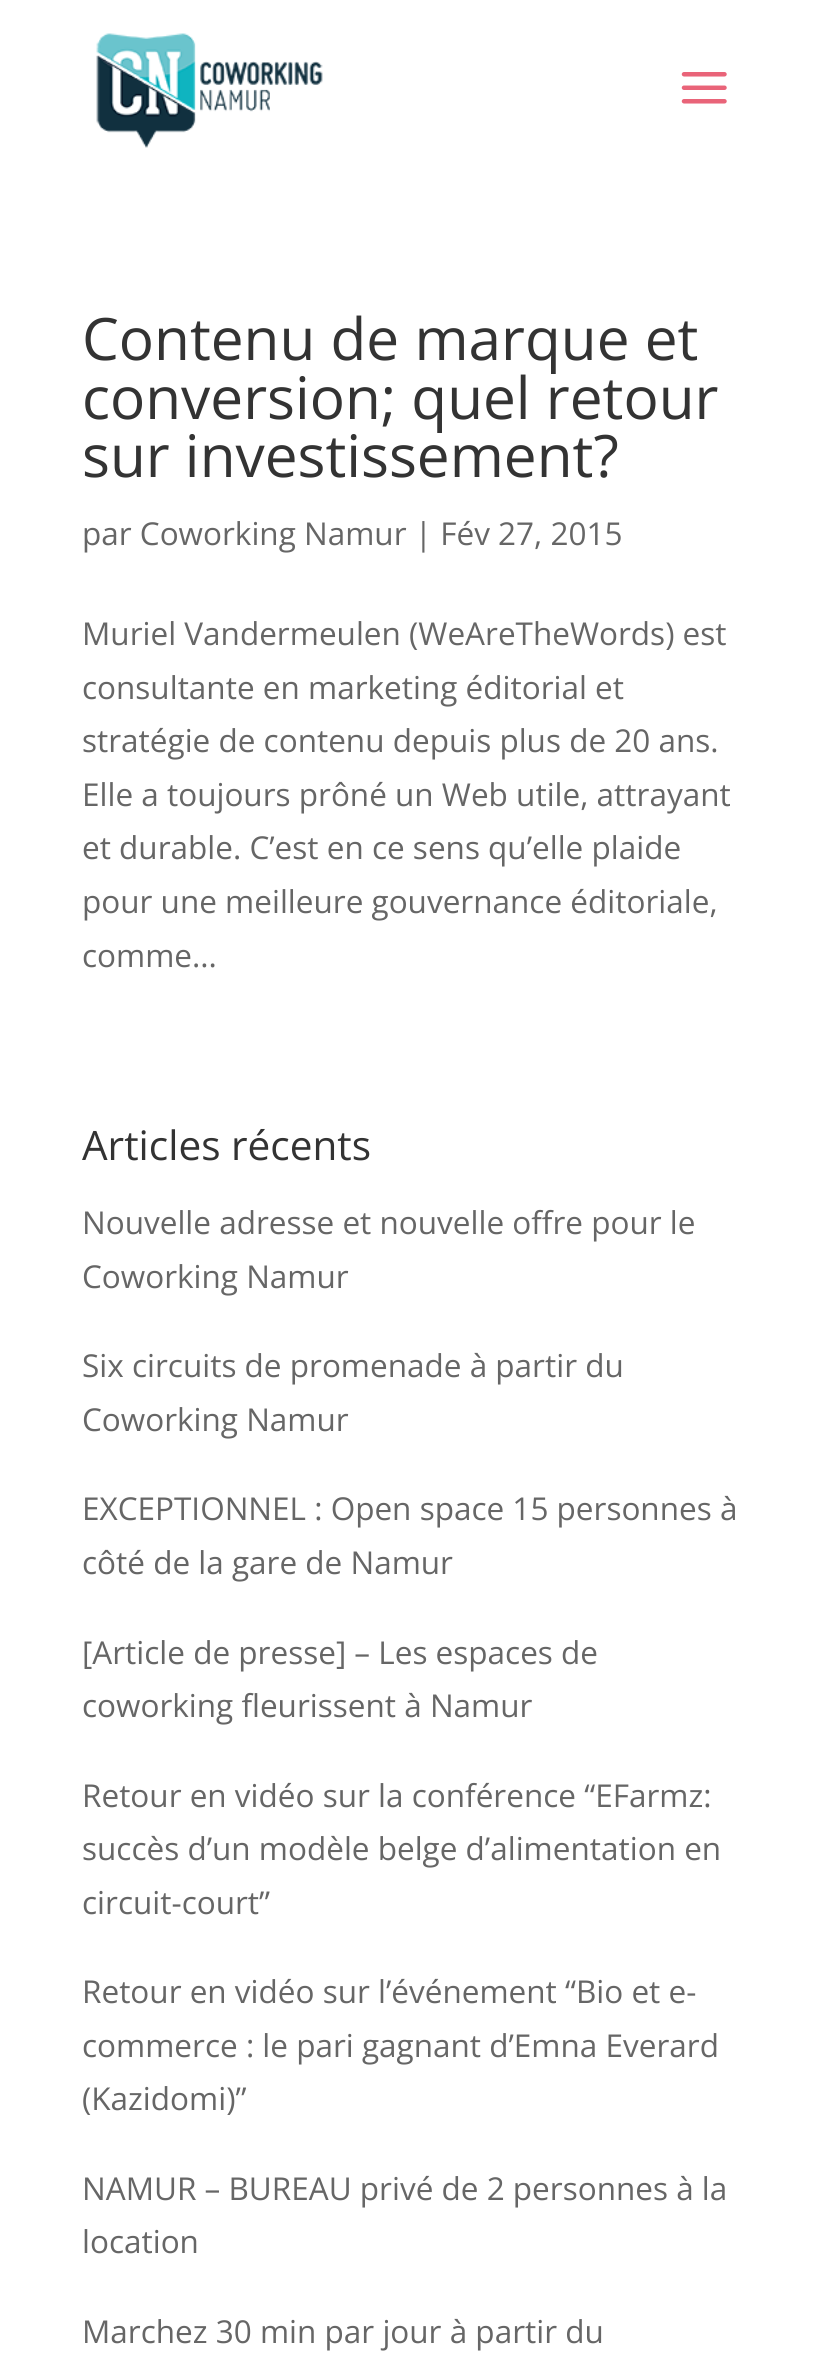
#include <cairo.h>
#include <math.h>
#include <stddef.h>


static void rgb(cairo_t *cr, int r, int g, int b)
{
	cairo_set_source_rgb(cr, r / 255.0, g / 255.0, b / 255.0);
}

static void face(cairo_t *cr, const char *family, double size, int italic, int bold)
{
	cairo_select_font_face(cr, family, italic ? CAIRO_FONT_SLANT_ITALIC : CAIRO_FONT_SLANT_NORMAL,
		bold ? CAIRO_FONT_WEIGHT_BOLD : CAIRO_FONT_WEIGHT_NORMAL);
	cairo_set_font_size(cr, size);
}

static void label(cairo_t *cr, double x, double y, const char *s)
{
	cairo_move_to(cr, x, y);
	cairo_show_text(cr, s);
}

static void image(cairo_t *cr, const char *path, double x, double y, double w, double h)
{
	cairo_surface_t *image = cairo_image_surface_create_from_png(path);
	cairo_save(cr);
	cairo_set_source_surface(cr, image, x, y);
	cairo_rectangle(cr, x, y, w, h);
	cairo_fill(cr);
	cairo_restore(cr);
	cairo_surface_destroy(image);
}

static void draw(cairo_t *cr) {
	rgb(cr, 255, 255, 255);
	cairo_paint(cr);
	image(cr, "image0.png", 96, 33, 227, 115);
	image(cr, "image1.png", 681, 72, 46, 32);
	face(cr, "Open Sans", 58.5, 0, 0);
	rgb(cr, 51, 51, 51);
	label(cr, 82, 360, "Contenu de marque et");
	label(cr, 82, 419, "conversion; quel retour");
	label(cr, 82, 477, "sur investissement?");
	face(cr, "Open Sans", 31.5, 0, 0);
	rgb(cr, 102, 102, 102);
	label(cr, 82, 545, "par Coworking Namur | Fév 27, 2015");
	label(cr, 82, 645, "Muriel Vandermeulen (WeAreTheWords) est");
	label(cr, 82, 699, "consultante en marketing éditorial et");
	label(cr, 82, 752, "stratégie de contenu depuis plus de 20 ans.");
	label(cr, 82, 806, "Elle a toujours prôné un Web utile, attrayant");
	label(cr, 82, 859, "et durable. C’est en ce sens qu’elle plaide");
	label(cr, 82, 913, "pour une meilleure gouvernance éditoriale,");
	label(cr, 82, 967, "comme...");
	face(cr, "Open Sans", 40.5, 0, 0);
	rgb(cr, 51, 51, 51);
	label(cr, 82, 1160, "Articles récents");
	face(cr, "Open Sans", 31.5, 0, 0);
	rgb(cr, 102, 102, 102);
	label(cr, 82, 1234, "Nouvelle adresse et nouvelle offre pour le");
	label(cr, 82, 1288, "Coworking Namur");
	label(cr, 82, 1377, "Six circuits de promenade à partir du");
	label(cr, 82, 1431, "Coworking Namur");
	label(cr, 82, 1520, "EXCEPTIONNEL : Open space 15 personnes à");
	label(cr, 82, 1574, "côté de la gare de Namur");
	label(cr, 82, 1664, "[Article de presse] – Les espaces de");
	label(cr, 82, 1717, "coworking fleurissent à Namur");
	label(cr, 82, 1807, "Retour en vidéo sur la conférence “EFarmz:");
	label(cr, 82, 1860, "succès d’un modèle belge d’alimentation en");
	label(cr, 82, 1914, "circuit-court”");
	label(cr, 82, 2003, "Retour en vidéo sur l’événement “Bio et e-");
	label(cr, 82, 2057, "commerce : le pari gagnant d’Emna Everard");
	label(cr, 82, 2110, "(Kazidomi)”");
	label(cr, 82, 2200, "NAMUR – BUREAU privé de 2 personnes à la");
	label(cr, 82, 2253, "location");
	label(cr, 82, 2343, "Marchez 30 min par jour à partir du");
}

int main(void) {
	cairo_surface_t *surface = cairo_image_surface_create(CAIRO_FORMAT_RGB24, 823, 2373);
	cairo_t *cr = cairo_create(surface);
	cairo_font_options_t *options = cairo_font_options_create();
	cairo_font_options_set_hint_metrics(options, CAIRO_HINT_METRICS_OFF);
	cairo_font_options_set_hint_style(options, CAIRO_HINT_STYLE_NONE);
	cairo_set_font_options(cr, options);
	cairo_set_miter_limit(cr, 4);
	draw(cr);
	cairo_surface_write_to_png(surface, "render.png");
	cairo_font_options_destroy(options);
	cairo_destroy(cr);
	cairo_surface_destroy(surface);
	return 0;
}
